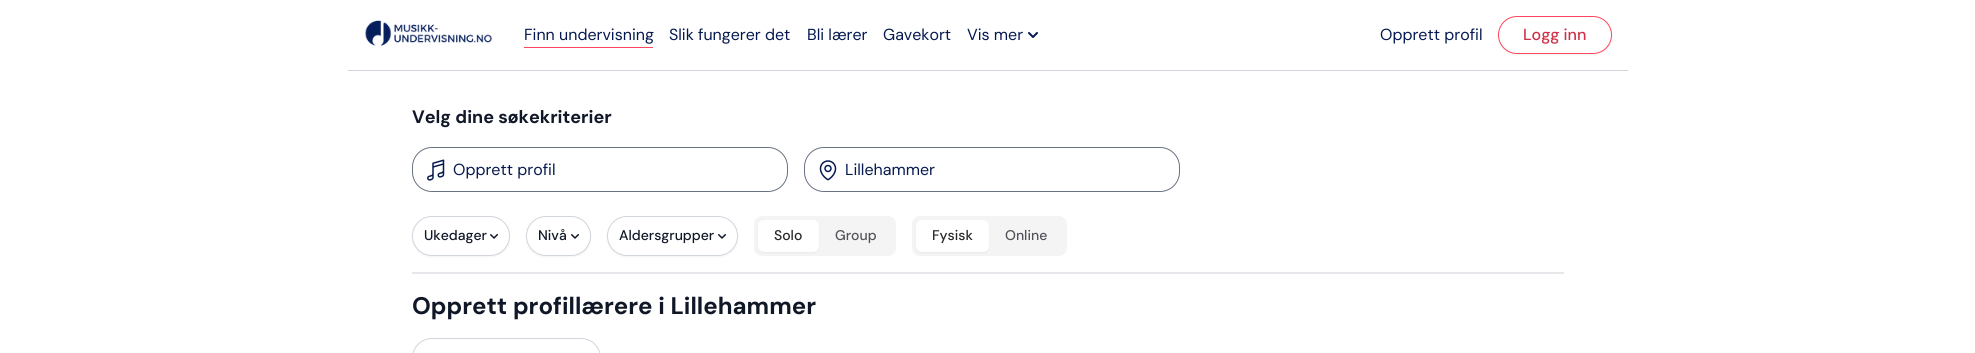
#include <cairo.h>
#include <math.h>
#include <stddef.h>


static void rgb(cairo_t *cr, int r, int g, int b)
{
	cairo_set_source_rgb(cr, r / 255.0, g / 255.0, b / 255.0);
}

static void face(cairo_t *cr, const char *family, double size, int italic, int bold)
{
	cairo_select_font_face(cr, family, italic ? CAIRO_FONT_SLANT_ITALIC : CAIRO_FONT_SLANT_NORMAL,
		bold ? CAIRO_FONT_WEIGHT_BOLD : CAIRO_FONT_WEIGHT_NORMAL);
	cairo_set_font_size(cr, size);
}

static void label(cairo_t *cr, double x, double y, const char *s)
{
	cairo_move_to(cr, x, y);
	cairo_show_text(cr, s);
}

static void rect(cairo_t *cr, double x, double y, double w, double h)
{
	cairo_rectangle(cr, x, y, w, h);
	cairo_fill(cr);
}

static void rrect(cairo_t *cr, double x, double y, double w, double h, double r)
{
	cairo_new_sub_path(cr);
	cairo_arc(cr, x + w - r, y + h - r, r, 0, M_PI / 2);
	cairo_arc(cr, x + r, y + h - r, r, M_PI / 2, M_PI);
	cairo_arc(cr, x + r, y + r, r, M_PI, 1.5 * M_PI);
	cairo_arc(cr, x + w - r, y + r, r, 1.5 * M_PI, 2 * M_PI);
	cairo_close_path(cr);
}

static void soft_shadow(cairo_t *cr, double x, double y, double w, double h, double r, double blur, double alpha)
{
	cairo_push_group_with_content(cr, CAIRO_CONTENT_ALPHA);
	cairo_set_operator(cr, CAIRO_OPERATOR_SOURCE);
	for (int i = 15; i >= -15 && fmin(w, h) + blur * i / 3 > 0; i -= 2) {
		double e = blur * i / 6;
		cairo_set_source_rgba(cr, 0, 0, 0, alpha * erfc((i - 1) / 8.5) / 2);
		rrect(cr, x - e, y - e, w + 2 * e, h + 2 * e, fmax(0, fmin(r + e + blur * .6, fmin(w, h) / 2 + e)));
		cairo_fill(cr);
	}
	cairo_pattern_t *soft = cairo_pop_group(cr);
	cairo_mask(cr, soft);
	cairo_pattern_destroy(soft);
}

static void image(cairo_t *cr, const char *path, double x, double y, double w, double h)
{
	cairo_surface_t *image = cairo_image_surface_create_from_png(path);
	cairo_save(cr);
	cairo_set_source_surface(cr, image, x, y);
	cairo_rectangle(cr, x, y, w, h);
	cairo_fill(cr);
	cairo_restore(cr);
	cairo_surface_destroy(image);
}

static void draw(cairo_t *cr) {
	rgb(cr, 255, 255, 255);
	cairo_paint(cr);
	rgb(cr, 209, 213, 220);
	rect(cr, 348, 70, 1280, 1);
	image(cr, "image0.png", 365, 20, 127, 26);
	rgb(cr, 255, 70, 92);
	rect(cr, 524, 47, 129, 1);
	face(cr, "DM Sans", 16, 0, 0);
	rgb(cr, 5, 25, 80);
	label(cr, 524, 40, "Finn undervisning");
	label(cr, 669, 40, "Slik fungerer det");
	label(cr, 807, 40, "Bli lærer");
	label(cr, 883, 40, "Gavekort");
	label(cr, 967, 40, "Vis mer");
	image(cr, "image1.png", 1028, 32, 10, 6);
	label(cr, 1380, 40, "Opprett profil");
	rgb(cr, 0, 0, 0);
	soft_shadow(cr, 1498, 17, 114, 38, 19, 1, 0.05);
	rgb(cr, 255, 255, 255);
	rrect(cr, 1498.5, 16.5, 113, 37, 18.5);
	cairo_fill_preserve(cr);
	rgb(cr, 255, 70, 92);
	cairo_set_line_width(cr, 1);
	cairo_stroke(cr);
	face(cr, "DM Sans Medium", 16, 0, 0);
	rgb(cr, 207, 48, 71);
	label(cr, 1523, 40, "Logg inn");
	face(cr, "DM Sans", 18, 0, 1);
	rgb(cr, 16, 24, 40);
	label(cr, 412, 123, "Velg dine søkekriterier");
	rrect(cr, 412.5, 147.5, 375, 44, 19.5);
	rgb(cr, 106, 114, 130);
	cairo_stroke(cr);
	image(cr, "image2.png", 427, 159, 18, 22);
	face(cr, "DM Sans", 16, 0, 0);
	rgb(cr, 5, 25, 80);
	label(cr, 453, 175, "Opprett profil");
	rrect(cr, 804.5, 147.5, 375, 44, 19.5);
	rgb(cr, 106, 114, 130);
	cairo_stroke(cr);
	image(cr, "image3.png", 819, 160, 18, 21);
	rgb(cr, 5, 25, 80);
	label(cr, 845, 175, "Lillehammer");
	rgb(cr, 229, 231, 235);
	rect(cr, 412, 272, 1152, 2);
	rgb(cr, 0, 0, 0);
	soft_shadow(cr, 412, 217, 98, 40, 20, 1, 0.05);
	rgb(cr, 255, 255, 255);
	rrect(cr, 412.5, 216.5, 97, 39, 19.5);
	cairo_fill_preserve(cr);
	rgb(cr, 209, 213, 220);
	cairo_stroke(cr);
	face(cr, "DM Sans Medium", 14, 0, 0);
	rgb(cr, 16, 24, 40);
	label(cr, 424, 240, "Ukedager");
	image(cr, "image4.png", 490, 234, 8, 5);
	rgb(cr, 0, 0, 0);
	soft_shadow(cr, 526, 217, 65, 40, 20, 1, 0.05);
	rgb(cr, 255, 255, 255);
	rrect(cr, 526.5, 216.5, 64, 39, 19.5);
	cairo_fill_preserve(cr);
	rgb(cr, 209, 213, 220);
	cairo_stroke(cr);
	rgb(cr, 16, 24, 40);
	label(cr, 538, 240, "Nivå");
	image(cr, "image4.png", 571, 234, 8, 5);
	rgb(cr, 0, 0, 0);
	soft_shadow(cr, 607, 217, 131, 40, 20, 1, 0.05);
	rgb(cr, 255, 255, 255);
	rrect(cr, 607.5, 216.5, 130, 39, 19.5);
	cairo_fill_preserve(cr);
	rgb(cr, 209, 213, 220);
	cairo_stroke(cr);
	rgb(cr, 16, 24, 40);
	label(cr, 619, 240, "Aldersgrupper");
	image(cr, "image4.png", 718, 234, 8, 5);
	rgb(cr, 244, 244, 244);
	rrect(cr, 754, 216, 142, 40, 8);
	cairo_fill(cr);
	rgb(cr, 0, 0, 0);
	soft_shadow(cr, 758, 221, 61, 32, 6, 1, 0.05);
	rgb(cr, 255, 255, 255);
	rrect(cr, 758, 220, 61, 32, 6);
	cairo_fill(cr);
	rgb(cr, 39, 39, 42);
	label(cr, 774, 240, "Solo");
	rgb(cr, 82, 82, 92);
	label(cr, 835, 240, "Group");
	rgb(cr, 244, 244, 244);
	rrect(cr, 912, 216, 155, 40, 8);
	cairo_fill(cr);
	rgb(cr, 0, 0, 0);
	soft_shadow(cr, 916, 221, 73, 32, 6, 1, 0.05);
	rgb(cr, 255, 255, 255);
	rrect(cr, 916, 220, 73, 32, 6);
	cairo_fill(cr);
	rgb(cr, 39, 39, 42);
	label(cr, 932, 240, "Fysisk");
	rgb(cr, 82, 82, 92);
	label(cr, 1005, 240, "Online");
	face(cr, "DM Sans", 24, 0, 1);
	rgb(cr, 16, 24, 40);
	label(cr, 412, 314, "Opprett profillærere i Lillehammer");
	rrect(cr, 412.5, 338.5, 188, 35, 19.5);
	rgb(cr, 209, 213, 220);
	cairo_stroke(cr);
}

int main(void) {
	cairo_surface_t *surface = cairo_image_surface_create(CAIRO_FORMAT_RGB24, 1975, 353);
	cairo_t *cr = cairo_create(surface);
	cairo_font_options_t *options = cairo_font_options_create();
	cairo_font_options_set_hint_metrics(options, CAIRO_HINT_METRICS_OFF);
	cairo_font_options_set_hint_style(options, CAIRO_HINT_STYLE_NONE);
	cairo_set_font_options(cr, options);
	cairo_set_miter_limit(cr, 4);
	draw(cr);
	cairo_surface_write_to_png(surface, "render.png");
	cairo_font_options_destroy(options);
	cairo_destroy(cr);
	cairo_surface_destroy(surface);
	return 0;
}
